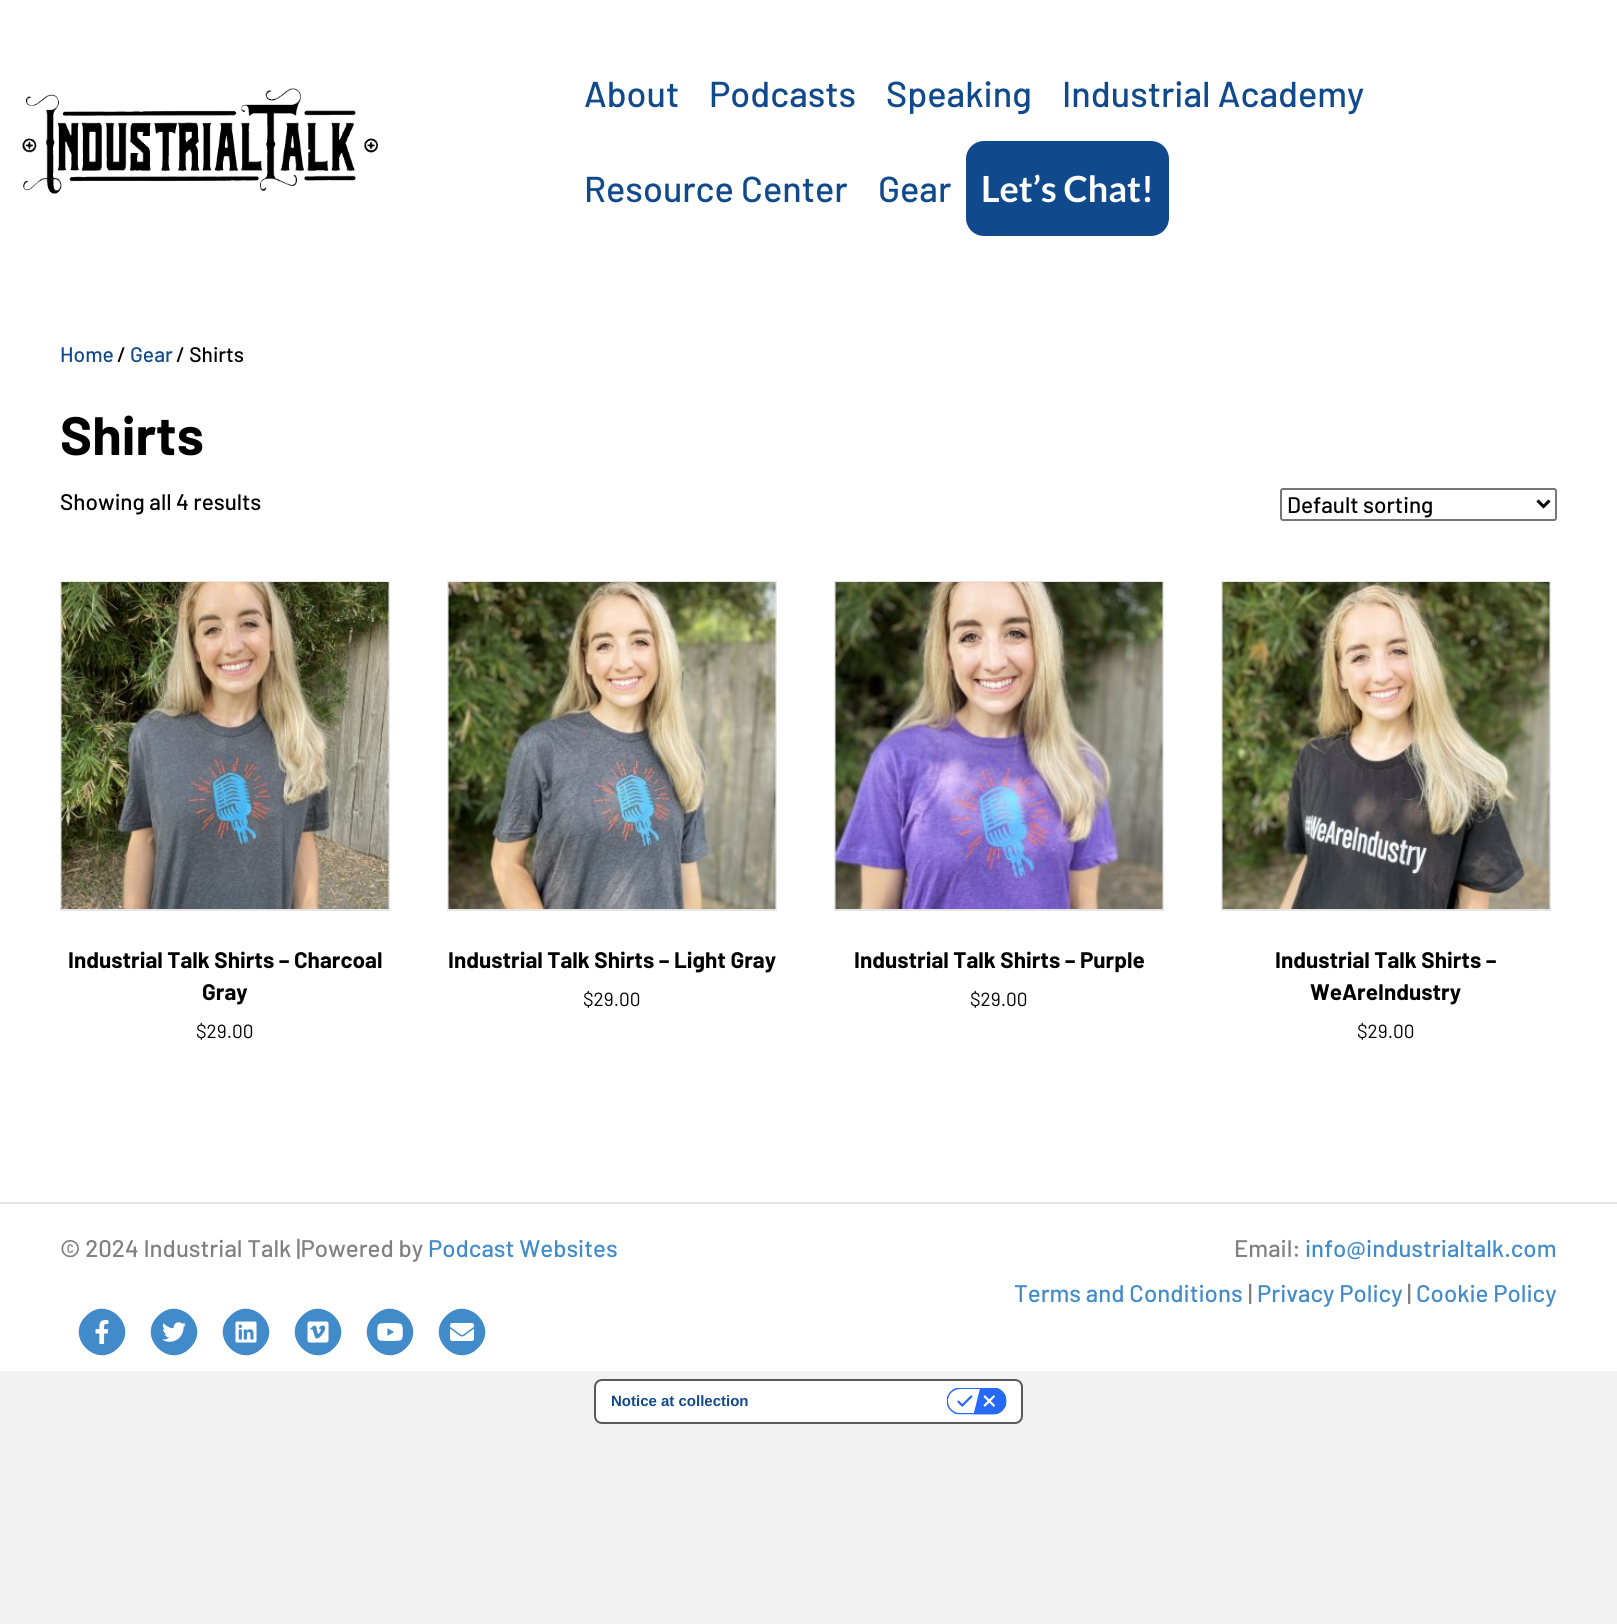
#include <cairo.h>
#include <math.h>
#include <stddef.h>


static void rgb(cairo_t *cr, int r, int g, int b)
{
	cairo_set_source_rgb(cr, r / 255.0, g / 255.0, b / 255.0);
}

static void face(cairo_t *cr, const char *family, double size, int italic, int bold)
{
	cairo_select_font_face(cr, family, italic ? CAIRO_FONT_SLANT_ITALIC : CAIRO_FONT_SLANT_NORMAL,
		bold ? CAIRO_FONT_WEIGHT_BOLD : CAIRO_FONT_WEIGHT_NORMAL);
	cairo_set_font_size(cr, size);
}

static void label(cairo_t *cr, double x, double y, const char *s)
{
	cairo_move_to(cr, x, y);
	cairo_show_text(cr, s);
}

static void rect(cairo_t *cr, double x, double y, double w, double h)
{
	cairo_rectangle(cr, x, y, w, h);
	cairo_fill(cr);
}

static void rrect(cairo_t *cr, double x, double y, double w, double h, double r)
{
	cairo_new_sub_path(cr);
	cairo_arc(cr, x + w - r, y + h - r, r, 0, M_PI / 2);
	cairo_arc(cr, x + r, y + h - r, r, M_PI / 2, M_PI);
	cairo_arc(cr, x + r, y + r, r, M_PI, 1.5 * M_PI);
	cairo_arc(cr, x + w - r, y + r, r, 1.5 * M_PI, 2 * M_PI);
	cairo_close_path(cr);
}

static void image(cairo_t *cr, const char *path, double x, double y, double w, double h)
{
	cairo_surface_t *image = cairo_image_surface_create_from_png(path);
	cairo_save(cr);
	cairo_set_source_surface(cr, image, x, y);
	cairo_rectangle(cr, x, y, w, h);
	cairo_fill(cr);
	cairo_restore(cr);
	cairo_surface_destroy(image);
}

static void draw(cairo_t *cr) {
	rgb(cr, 242, 242, 242);
	cairo_paint(cr);
	rgb(cr, 255, 255, 255);
	rect(cr, 0, 0, 1617, 1202);
	image(cr, "image0.png", 22, 88, 356, 106);
	face(cr, "Barlow Medium", 36, 0, 0);
	rgb(cr, 17, 74, 140);
	label(cr, 584, 107, "About");
	label(cr, 709, 107, "Podcasts");
	label(cr, 886, 107, "Speaking");
	label(cr, 1062, 107, "Industrial Academy");
	label(cr, 584, 202, "Resource Center");
	label(cr, 878, 202, "Gear");
	rrect(cr, 966, 141, 203, 95, 18);
	cairo_fill(cr);
	face(cr, "Lato", 36, 0, 1);
	rgb(cr, 255, 255, 255);
	label(cr, 981, 202, "Let’s Chat!");
	face(cr, "Barlow Medium", 21, 0, 0);
	rgb(cr, 17, 74, 140);
	label(cr, 60, 362, "Home");
	rgb(cr, 0, 0, 0);
	label(cr, 117, 362, "/");
	rgb(cr, 17, 74, 140);
	label(cr, 130, 362, "Gear");
	rgb(cr, 0, 0, 0);
	label(cr, 176, 362, "/ Shirts");
	face(cr, "Barlow", 54, 0, 1);
	label(cr, 60, 455, "Shirts");
	face(cr, "Barlow Medium", 22.5, 0, 0);
	label(cr, 60, 510, "Showing all 4 results");
	rrect(cr, 1281, 489, 275, 31, 2);
	rgb(cr, 118, 118, 118);
	cairo_stroke(cr);
	cairo_new_path(cr);
	cairo_move_to(cr, 1537.5, 500.5);
	cairo_line_to(cr, 1543.5, 506.5);
	cairo_line_to(cr, 1549.5, 500.5);
	rgb(cr, 0, 0, 0);
	cairo_set_line_width(cr, 3);
	cairo_stroke(cr);
	label(cr, 1287, 513, "Default sorting");
	cairo_rectangle(cr, 61, 582, 328, 328);
	rgb(cr, 230, 230, 230);
	cairo_set_line_width(cr, 2);
	cairo_stroke(cr);
	image(cr, "image1.png", 61, 582, 328, 327);
	face(cr, "Barlow", 22.5, 0, 1);
	rgb(cr, 0, 0, 0);
	label(cr, 68, 968, "Industrial Talk Shirts – Charcoal");
	label(cr, 202, 1000, "Gray");
	face(cr, "Barlow", 19, 0, 0);
	label(cr, 196, 1038, "$29.00");
	cairo_rectangle(cr, 448, 582, 328, 328);
	rgb(cr, 230, 230, 230);
	cairo_stroke(cr);
	image(cr, "image2.png", 448, 582, 328, 327);
	face(cr, "Barlow", 22.5, 0, 1);
	rgb(cr, 0, 0, 0);
	label(cr, 448, 968, "Industrial Talk Shirts – Light Gray");
	face(cr, "Barlow", 19, 0, 0);
	label(cr, 583, 1006, "$29.00");
	cairo_rectangle(cr, 835, 582, 328, 328);
	rgb(cr, 230, 230, 230);
	cairo_stroke(cr);
	image(cr, "image3.png", 835, 582, 328, 327);
	face(cr, "Barlow", 22.5, 0, 1);
	rgb(cr, 0, 0, 0);
	label(cr, 854, 968, "Industrial Talk Shirts – Purple");
	face(cr, "Barlow", 19, 0, 0);
	label(cr, 970, 1006, "$29.00");
	cairo_rectangle(cr, 1222, 582, 328, 328);
	rgb(cr, 230, 230, 230);
	cairo_stroke(cr);
	image(cr, "image4.png", 1222, 582, 328, 327);
	face(cr, "Barlow", 22.5, 0, 1);
	rgb(cr, 0, 0, 0);
	label(cr, 1275, 968, "Industrial Talk Shirts –");
	label(cr, 1310, 1000, "WeAreIndustry");
	face(cr, "Barlow", 19, 0, 0);
	label(cr, 1357, 1038, "$29.00");
	rgb(cr, 255, 255, 255);
	rect(cr, 0, 1204, 1617, 167);
	rgb(cr, 230, 230, 230);
	rect(cr, 0, 1202, 1617, 2);
	face(cr, "Barlow Medium", 24, 0, 0);
	rgb(cr, 128, 128, 128);
	label(cr, 60, 1257, "© 2024 Industrial Talk |Powered by");
	rgb(cr, 66, 139, 202);
	label(cr, 428, 1257, "Podcast Websites");
	cairo_new_path(cr);
	cairo_move_to(cr, 86, 1316);
	cairo_curve_to(cr, 107, 1294, 140, 1327, 118, 1348);
	cairo_curve_to(cr, 97, 1370, 64, 1337, 86, 1316);
	cairo_close_path(cr);
	cairo_fill(cr);
	image(cr, "image5.png", 95, 1320, 14, 24);
	cairo_new_path(cr);
	cairo_move_to(cr, 158, 1316);
	cairo_curve_to(cr, 179, 1294, 212, 1327, 190, 1348);
	cairo_curve_to(cr, 169, 1370, 136, 1337, 158, 1316);
	cairo_close_path(cr);
	cairo_fill(cr);
	image(cr, "image6.png", 162, 1322, 24, 20);
	cairo_new_path(cr);
	cairo_move_to(cr, 230, 1316);
	cairo_curve_to(cr, 251, 1294, 284, 1327, 262, 1348);
	cairo_curve_to(cr, 241, 1370, 208, 1337, 230, 1316);
	cairo_close_path(cr);
	cairo_fill(cr);
	image(cr, "image7.png", 235, 1321, 22, 22);
	cairo_new_path(cr);
	cairo_move_to(cr, 302, 1316);
	cairo_curve_to(cr, 323, 1294, 356, 1327, 334, 1348);
	cairo_curve_to(cr, 313, 1370, 280, 1337, 302, 1316);
	cairo_close_path(cr);
	cairo_fill(cr);
	image(cr, "image8.png", 307, 1321, 22, 22);
	cairo_new_path(cr);
	cairo_move_to(cr, 374, 1316);
	cairo_curve_to(cr, 395, 1294, 428, 1327, 406, 1348);
	cairo_curve_to(cr, 385, 1370, 352, 1337, 374, 1316);
	cairo_close_path(cr);
	cairo_fill(cr);
	image(cr, "image9.png", 377, 1323, 26, 18);
	cairo_new_path(cr);
	cairo_move_to(cr, 446, 1316);
	cairo_curve_to(cr, 467, 1294, 500, 1327, 478, 1348);
	cairo_curve_to(cr, 457, 1370, 424, 1337, 446, 1316);
	cairo_close_path(cr);
	cairo_fill(cr);
	image(cr, "image10.png", 450, 1323, 24, 18);
	rgb(cr, 128, 128, 128);
	label(cr, 1234, 1257, "Email:");
	rgb(cr, 66, 139, 202);
	label(cr, 1305, 1257, "info@industrialtalk.com");
	label(cr, 1014, 1302, "Terms and Conditions");
	rgb(cr, 128, 128, 128);
	label(cr, 1248, 1302, "|");
	rgb(cr, 66, 139, 202);
	label(cr, 1257, 1302, "Privacy Policy");
	rgb(cr, 128, 128, 128);
	label(cr, 1407, 1302, "|");
	rgb(cr, 66, 139, 202);
	label(cr, 1416, 1302, "Cookie Policy");
	rgb(cr, 255, 255, 255);
	rrect(cr, 595, 1380, 427, 43, 7);
	cairo_fill_preserve(cr);
	rgb(cr, 89, 89, 89);
	cairo_stroke(cr);
	face(cr, "Liberation Sans", 15, 0, 1);
	rgb(cr, 17, 74, 140);
	label(cr, 611, 1406, "Notice at collection");
	image(cr, "image11.png", 947, 1388, 60, 27);
}

int main(void) {
	cairo_surface_t *surface = cairo_image_surface_create(CAIRO_FORMAT_RGB24, 1617, 1624);
	cairo_t *cr = cairo_create(surface);
	cairo_font_options_t *options = cairo_font_options_create();
	cairo_font_options_set_hint_metrics(options, CAIRO_HINT_METRICS_OFF);
	cairo_font_options_set_hint_style(options, CAIRO_HINT_STYLE_NONE);
	cairo_set_font_options(cr, options);
	cairo_set_miter_limit(cr, 4);
	draw(cr);
	cairo_surface_write_to_png(surface, "render.png");
	cairo_font_options_destroy(options);
	cairo_destroy(cr);
	cairo_surface_destroy(surface);
	return 0;
}
